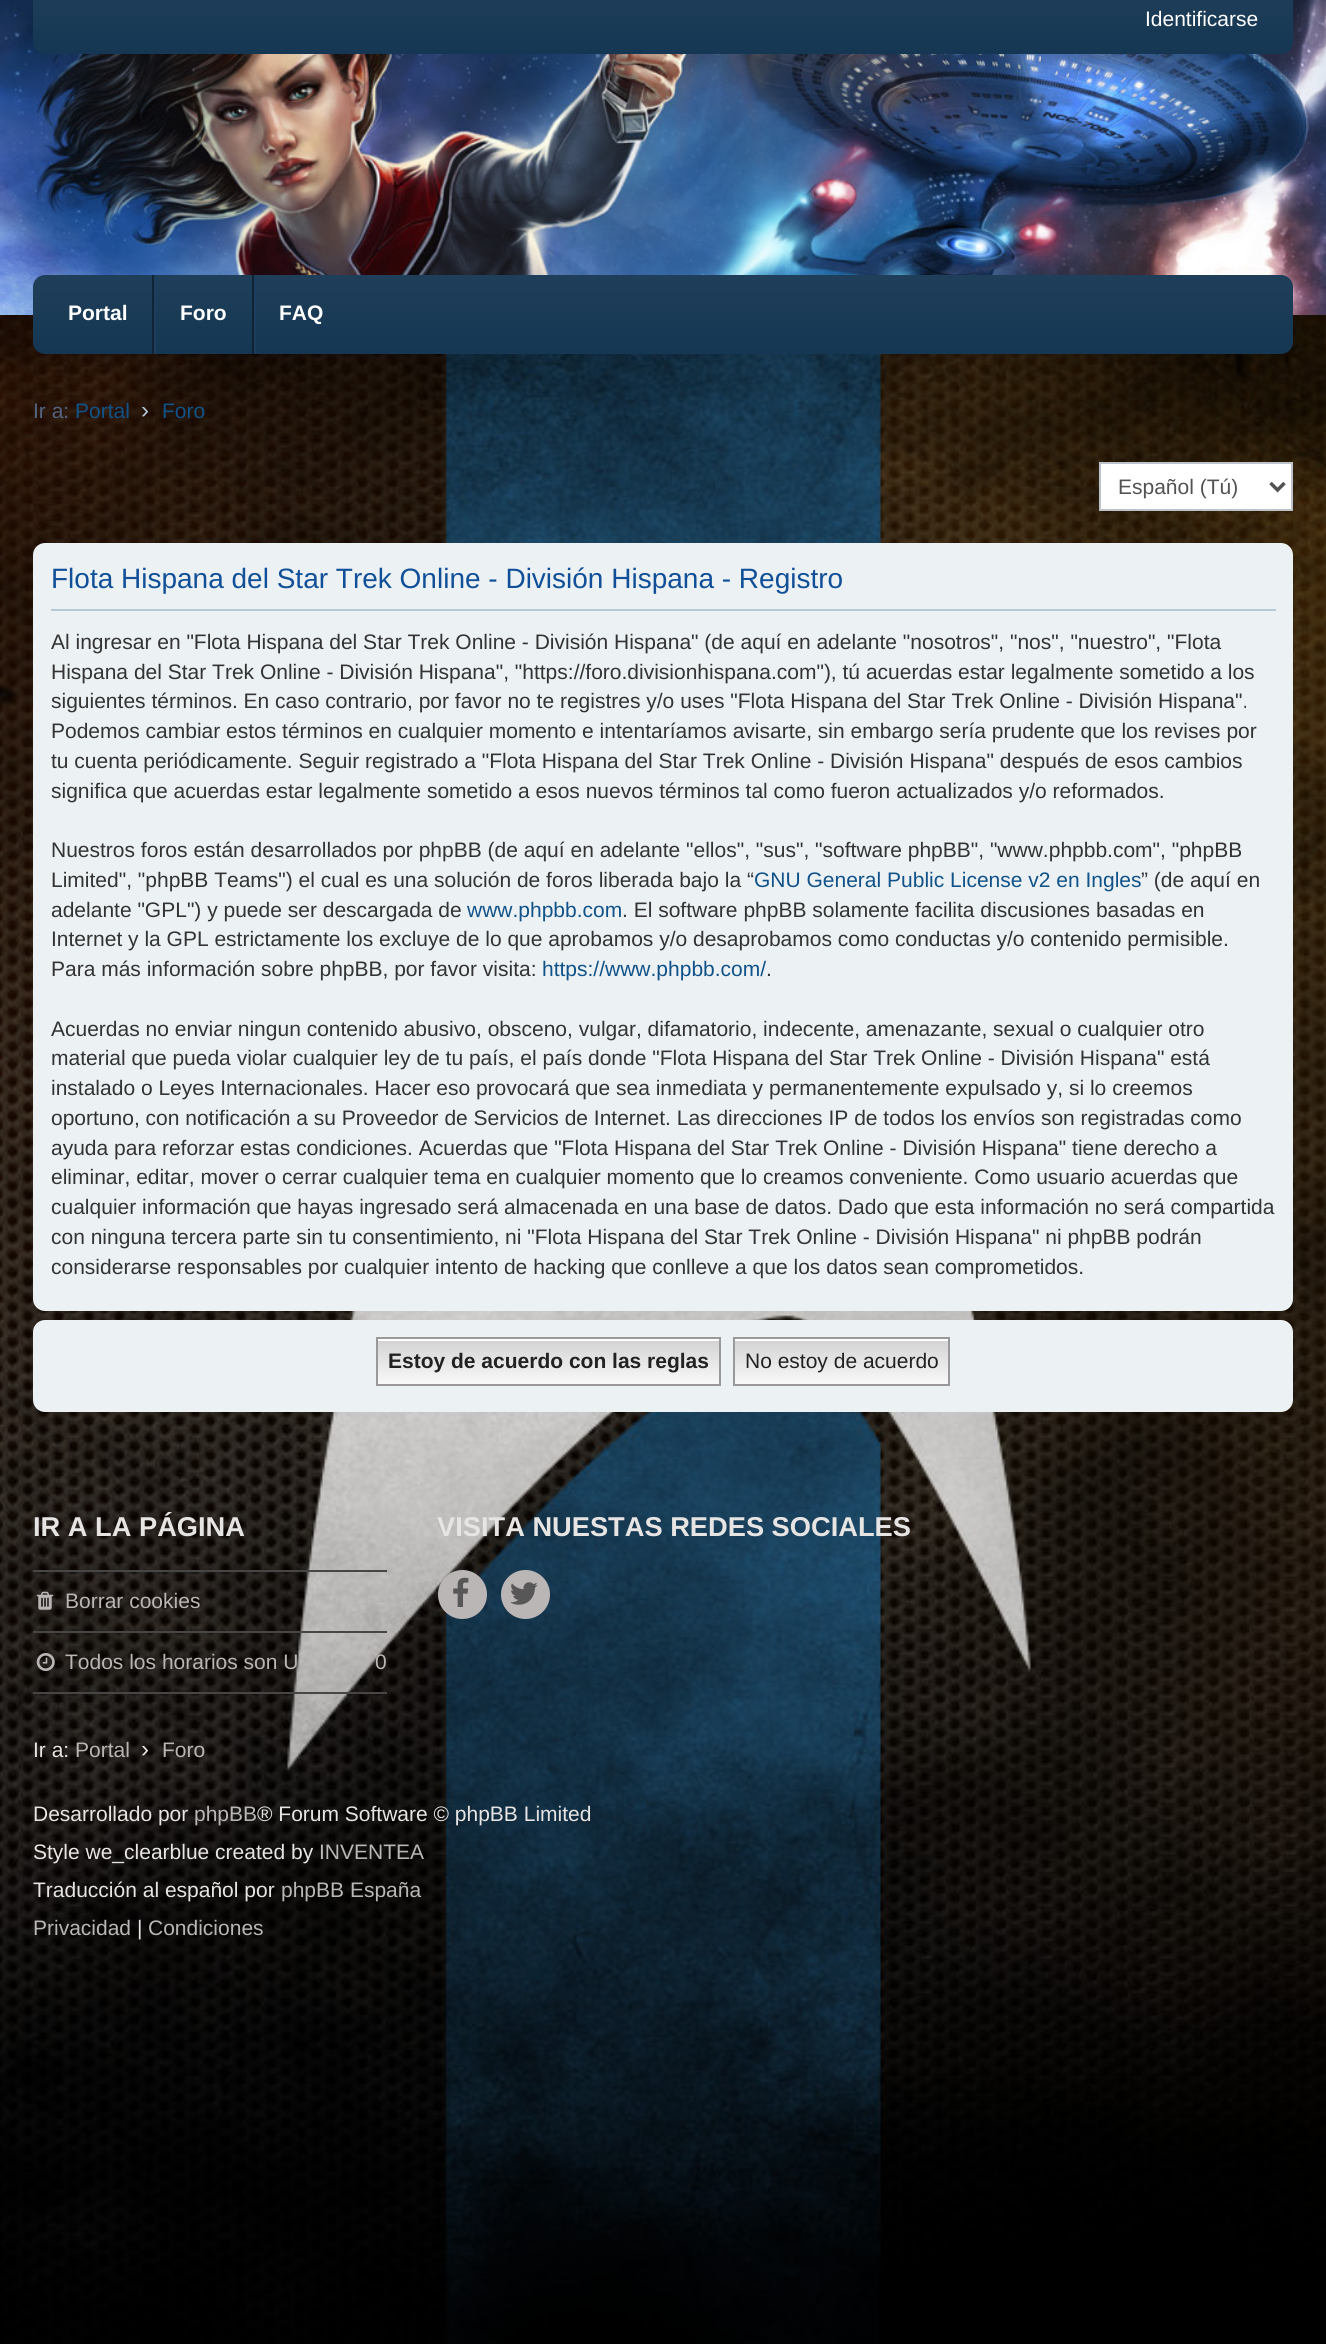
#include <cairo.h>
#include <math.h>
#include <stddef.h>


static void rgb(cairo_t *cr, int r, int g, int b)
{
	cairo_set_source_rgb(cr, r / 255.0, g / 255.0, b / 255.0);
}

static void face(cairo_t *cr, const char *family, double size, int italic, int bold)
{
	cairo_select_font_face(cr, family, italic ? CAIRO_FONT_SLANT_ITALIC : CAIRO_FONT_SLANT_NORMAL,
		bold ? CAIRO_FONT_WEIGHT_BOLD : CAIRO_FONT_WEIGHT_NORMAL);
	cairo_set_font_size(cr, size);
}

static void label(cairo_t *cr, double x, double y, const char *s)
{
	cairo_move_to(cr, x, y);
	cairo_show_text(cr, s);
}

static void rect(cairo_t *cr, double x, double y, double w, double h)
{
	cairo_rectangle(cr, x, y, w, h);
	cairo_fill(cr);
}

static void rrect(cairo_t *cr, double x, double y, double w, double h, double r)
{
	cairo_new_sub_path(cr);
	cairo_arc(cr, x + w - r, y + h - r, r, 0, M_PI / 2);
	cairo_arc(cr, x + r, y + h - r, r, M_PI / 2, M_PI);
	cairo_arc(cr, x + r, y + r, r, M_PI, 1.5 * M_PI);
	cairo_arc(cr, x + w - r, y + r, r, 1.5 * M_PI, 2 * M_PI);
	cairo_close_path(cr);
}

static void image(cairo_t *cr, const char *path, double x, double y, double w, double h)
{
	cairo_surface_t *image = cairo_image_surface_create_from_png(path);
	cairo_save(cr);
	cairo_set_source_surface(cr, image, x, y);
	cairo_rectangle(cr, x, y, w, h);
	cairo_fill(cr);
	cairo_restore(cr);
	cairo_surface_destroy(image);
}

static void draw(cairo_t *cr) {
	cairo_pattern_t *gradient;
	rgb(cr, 255, 255, 255);
	cairo_paint(cr);
	image(cr, "image0.png", 0, 1992, 1326, 352);
	image(cr, "image1.png", 0, 315, 1326, 1677);
	image(cr, "image2.png", 0, 0, 1326, 315);
	gradient = cairo_pattern_create_linear(663, -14, 663, 54);
	cairo_pattern_add_color_stop_rgba(gradient, 0, 0.122, 0.243, 0.349, 1);
	cairo_pattern_add_color_stop_rgba(gradient, 1, 0.082, 0.216, 0.325, 1);
	cairo_set_source(cr, gradient);
	cairo_pattern_destroy(gradient);
	cairo_new_path(cr);
	cairo_move_to(cr, 33, -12);
	cairo_line_to(cr, 1293, -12);
	cairo_line_to(cr, 1293, 42);
	cairo_curve_to(cr, 1293, 48.5, 1287.5, 54, 1281, 54);
	cairo_line_to(cr, 45, 54);
	cairo_curve_to(cr, 38.5, 54, 33, 48.5, 33, 42);
	cairo_close_path(cr);
	cairo_fill(cr);
	face(cr, "Liberation Sans", 21, 0, 0);
	rgb(cr, 255, 255, 255);
	label(cr, 1145, 26, "Identificarse");
	gradient = cairo_pattern_create_linear(663, 275, 663, 354);
	cairo_pattern_add_color_stop_rgba(gradient, 0, 0.122, 0.243, 0.349, 1);
	cairo_pattern_add_color_stop_rgba(gradient, 1, 0.082, 0.216, 0.325, 1);
	cairo_set_source(cr, gradient);
	cairo_pattern_destroy(gradient);
	rrect(cr, 33, 275, 1260, 79, 12);
	cairo_fill(cr);
	rgb(cr, 16, 36, 53);
	rect(cr, 152, 275, 2, 79);
	face(cr, "Liberation Sans", 21, 0, 1);
	rgb(cr, 255, 255, 255);
	label(cr, 68, 320, "Portal");
	rgb(cr, 16, 36, 53);
	rect(cr, 252, 275, 2, 79);
	rgb(cr, 28, 62, 92);
	rect(cr, 154, 275, 2, 79);
	rgb(cr, 255, 255, 255);
	label(cr, 180, 320, "Foro");
	rgb(cr, 28, 62, 92);
	rect(cr, 254, 275, 2, 79);
	rgb(cr, 255, 255, 255);
	label(cr, 279, 320, "FAQ");
	face(cr, "Liberation Sans", 21, 0, 0);
	rgb(cr, 83, 100, 130);
	label(cr, 33, 418, "Ir a:");
	rgb(cr, 16, 82, 137);
	label(cr, 75, 418, "Portal");
	face(cr, "Liberation Sans", 24, 0, 0);
	rgb(cr, 183, 201, 215);
	label(cr, 141, 418, "›");
	face(cr, "Liberation Sans", 21, 0, 0);
	rgb(cr, 16, 82, 137);
	label(cr, 162, 418, "Foro");
	rgb(cr, 255, 255, 255);
	cairo_rectangle(cr, 1100, 463, 192, 47);
	cairo_fill_preserve(cr);
	rgb(cr, 188, 195, 202);
	cairo_stroke(cr);
	cairo_new_path(cr);
	cairo_move_to(cr, 1270.5, 483);
	cairo_line_to(cr, 1277.5, 490);
	cairo_line_to(cr, 1284.5, 483);
	rgb(cr, 82, 82, 82);
	cairo_set_line_width(cr, 3.5);
	cairo_stroke(cr);
	label(cr, 1118, 494, "Español (Tú)");
	rgb(cr, 236, 241, 243);
	rrect(cr, 33, 543, 1260, 768, 12);
	cairo_fill(cr);
	rgb(cr, 183, 201, 215);
	rect(cr, 51, 609, 1225, 2);
	face(cr, "Liberation Sans", 28, 0, 0);
	rgb(cr, 17, 80, 152);
	label(cr, 51, 588, "Flota Hispana del Star Trek Online - División Hispana - Registro");
	face(cr, "Liberation Sans", 21, 0, 0);
	rgb(cr, 51, 51, 51);
	label(cr, 51, 649, "Al ingresar en \"Flota Hispana del Star Trek Online - División Hispana\" (de aquí en adelante \"nosotros\", \"nos\", \"nuestro\", \"Flota");
	label(cr, 51, 679, "Hispana del Star Trek Online - División Hispana\", \"https://foro.divisionhispana.com\"), tú acuerdas estar legalmente sometido a los");
	label(cr, 51, 708, "siguientes términos. En caso contrario, por favor no te registres y/o uses \"Flota Hispana del Star Trek Online - División Hispana\".");
	label(cr, 51, 738, "Podemos cambiar estos términos en cualquier momento e intentaríamos avisarte, sin embargo sería prudente que los revises por");
	label(cr, 51, 768, "tu cuenta periódicamente. Seguir registrado a \"Flota Hispana del Star Trek Online - División Hispana\" después de esos cambios");
	label(cr, 51, 798, "significa que acuerdas estar legalmente sometido a esos nuevos términos tal como fueron actualizados y/o reformados.");
	label(cr, 51, 857, "Nuestros foros están desarrollados por phpBB (de aquí en adelante \"ellos\", \"sus\", \"software phpBB\", \"www.phpbb.com\", \"phpBB");
	label(cr, 51, 887, "Limited\", \"phpBB Teams\") el cual es una solución de foros liberada bajo la “");
	rgb(cr, 16, 82, 137);
	label(cr, 754, 887, "GNU General Public License v2 en Ingles");
	rgb(cr, 51, 51, 51);
	label(cr, 1141, 887, "” (de aquí en");
	label(cr, 51, 917, "adelante \"GPL\") y puede ser descargada de");
	rgb(cr, 16, 82, 137);
	label(cr, 467, 917, "www.phpbb.com");
	rgb(cr, 51, 51, 51);
	label(cr, 622, 917, ". El software phpBB solamente facilita discusiones basadas en");
	label(cr, 51, 946, "Internet y la GPL estrictamente los excluye de lo que aprobamos y/o desaprobamos como conductas y/o contenido permisible.");
	label(cr, 51, 976, "Para más información sobre phpBB, por favor visita:");
	rgb(cr, 16, 82, 137);
	label(cr, 542, 976, "https://www.phpbb.com/");
	rgb(cr, 51, 51, 51);
	label(cr, 766, 976, ".");
	label(cr, 51, 1036, "Acuerdas no enviar ningun contenido abusivo, obsceno, vulgar, difamatorio, indecente, amenazante, sexual o cualquier otro");
	label(cr, 51, 1065, "material que pueda violar cualquier ley de tu país, el país donde \"Flota Hispana del Star Trek Online - División Hispana\" está");
	label(cr, 51, 1095, "instalado o Leyes Internacionales. Hacer eso provocará que sea inmediata y permanentemente expulsado y, si lo creemos");
	label(cr, 51, 1125, "oportuno, con notificación a su Proveedor de Servicios de Internet. Las direcciones IP de todos los envíos son registradas como");
	label(cr, 51, 1155, "ayuda para reforzar estas condiciones. Acuerdas que \"Flota Hispana del Star Trek Online - División Hispana\" tiene derecho a");
	label(cr, 51, 1184, "eliminar, editar, mover o cerrar cualquier tema en cualquier momento que lo creamos conveniente. Como usuario acuerdas que");
	label(cr, 51, 1214, "cualquier información que hayas ingresado será almacenada en una base de datos. Dado que esta información no será compartida");
	label(cr, 51, 1244, "con ninguna tercera parte sin tu consentimiento, ni \"Flota Hispana del Star Trek Online - División Hispana\" ni phpBB podrán");
	label(cr, 51, 1274, "considerarse responsables por cualquier intento de hacking que conlleve a que los datos sean comprometidos.");
	rgb(cr, 236, 241, 243);
	rrect(cr, 33, 1320, 1260, 92, 12);
	cairo_fill(cr);
	gradient = cairo_pattern_create_linear(549, 1339, 549, 1384);
	cairo_pattern_add_color_stop_rgba(gradient, 0, 0.824, 0.824, 0.824, 1);
	cairo_pattern_add_color_stop_rgba(gradient, 1, 0.976, 0.976, 0.976, 1);
	cairo_set_source(cr, gradient);
	cairo_pattern_destroy(gradient);
	rect(cr, 378, 1341, 341, 43);
	rgb(cr, 255, 255, 255);
	rect(cr, 378, 1339, 341, 2);
	cairo_rectangle(cr, 377, 1338, 343, 47);
	rgb(cr, 153, 153, 153);
	cairo_set_line_width(cr, 2);
	cairo_stroke(cr);
	face(cr, "Liberation Sans", 21, 0, 1);
	rgb(cr, 34, 34, 34);
	label(cr, 388, 1368, "Estoy de acuerdo con las reglas");
	gradient = cairo_pattern_create_linear(842, 1339, 842, 1384);
	cairo_pattern_add_color_stop_rgba(gradient, 0, 0.824, 0.824, 0.824, 1);
	cairo_pattern_add_color_stop_rgba(gradient, 1, 0.976, 0.976, 0.976, 1);
	cairo_set_source(cr, gradient);
	cairo_pattern_destroy(gradient);
	rect(cr, 735, 1341, 213, 43);
	rgb(cr, 255, 255, 255);
	rect(cr, 735, 1339, 214, 2);
	cairo_rectangle(cr, 734, 1338, 215, 47);
	rgb(cr, 153, 153, 153);
	cairo_stroke(cr);
	face(cr, "Liberation Sans", 21, 0, 0);
	rgb(cr, 34, 34, 34);
	label(cr, 745, 1368, "No estoy de acuerdo");
	cairo_save(cr);
	cairo_rectangle(cr, 33, 1512, 1260, 182);
	cairo_clip(cr);
	face(cr, "Liberation Sans", 27.25, 0, 1);
	rgb(cr, 231, 228, 228);
	label(cr, 33, 1536, "IR A LA PÁGINA");
	cairo_restore(cr);
	rgb(cr, 71, 70, 70);
	rect(cr, 33, 1570, 354, 2);
	image(cr, "image3.png", 36, 1591, 18, 19);
	rgb(cr, 186, 182, 182);
	label(cr, 65, 1608, "Borrar cookies");
	rgb(cr, 71, 70, 70);
	rect(cr, 33, 1631, 354, 2);
	rect(cr, 33, 1692, 354, 2);
	image(cr, "image4.png", 36, 1653, 19, 18);
	rgb(cr, 186, 182, 182);
	label(cr, 65, 1669, "Todos los horarios son U");
	label(cr, 375, 1669, "0");
	face(cr, "Liberation Sans", 27.25, 0, 1);
	rgb(cr, 231, 228, 228);
	label(cr, 437, 1536, "VISITA NUESTAS REDES SOCIALES");
	rgb(cr, 186, 182, 182);
	cairo_new_path(cr);
	cairo_arc(cr, 462.5, 1594.5, 24.5, 0, 2 * M_PI);
	cairo_fill(cr);
	image(cr, "image5.png", 453, 1577, 16, 30);
	cairo_arc(cr, 525.5, 1594.5, 24.5, 0, 2 * M_PI);
	cairo_fill(cr);
	image(cr, "image6.png", 510, 1582, 28, 23);
	face(cr, "Liberation Sans", 21, 0, 0);
	rgb(cr, 231, 228, 228);
	label(cr, 33, 1757, "Ir a:");
	rgb(cr, 186, 182, 182);
	label(cr, 75, 1757, "Portal");
	face(cr, "Liberation Sans", 24, 0, 0);
	rgb(cr, 231, 228, 228);
	label(cr, 141, 1757, "›");
	face(cr, "Liberation Sans", 21, 0, 0);
	rgb(cr, 186, 182, 182);
	label(cr, 162, 1757, "Foro");
	rgb(cr, 231, 228, 228);
	label(cr, 33, 1821, "Desarrollado por");
	rgb(cr, 186, 182, 182);
	label(cr, 194, 1821, "phpBB");
	rgb(cr, 231, 228, 228);
	label(cr, 257, 1821, "® Forum Software © phpBB Limited");
	label(cr, 33, 1859, "Style we_clearblue created by");
	rgb(cr, 186, 182, 182);
	label(cr, 319, 1859, "INVENTEA");
	rgb(cr, 231, 228, 228);
	label(cr, 33, 1897, "Traducción al español por");
	rgb(cr, 186, 182, 182);
	label(cr, 281, 1897, "phpBB España");
	label(cr, 33, 1935, "Privacidad");
	rgb(cr, 231, 228, 228);
	label(cr, 137, 1935, "|");
	rgb(cr, 186, 182, 182);
	label(cr, 148, 1935, "Condiciones");
}

int main(void) {
	cairo_surface_t *surface = cairo_image_surface_create(CAIRO_FORMAT_RGB24, 1326, 2344);
	cairo_t *cr = cairo_create(surface);
	cairo_font_options_t *options = cairo_font_options_create();
	cairo_font_options_set_hint_metrics(options, CAIRO_HINT_METRICS_OFF);
	cairo_font_options_set_hint_style(options, CAIRO_HINT_STYLE_NONE);
	cairo_set_font_options(cr, options);
	cairo_set_miter_limit(cr, 4);
	draw(cr);
	cairo_surface_write_to_png(surface, "render.png");
	cairo_font_options_destroy(options);
	cairo_destroy(cr);
	cairo_surface_destroy(surface);
	return 0;
}
